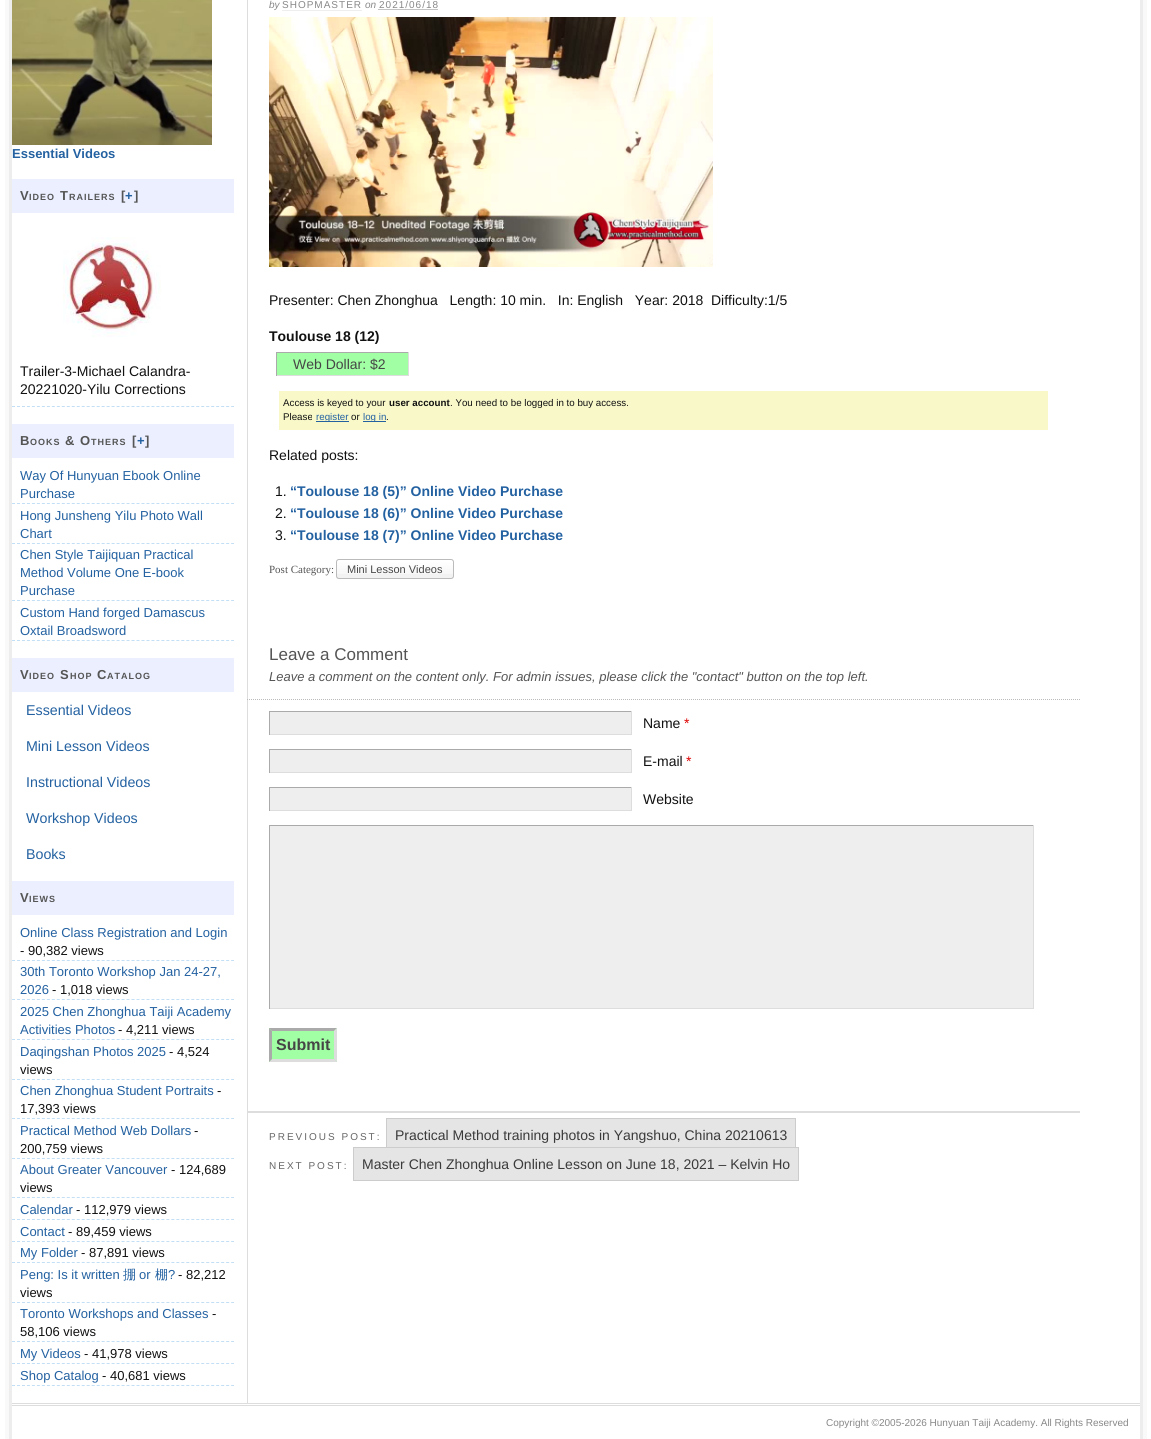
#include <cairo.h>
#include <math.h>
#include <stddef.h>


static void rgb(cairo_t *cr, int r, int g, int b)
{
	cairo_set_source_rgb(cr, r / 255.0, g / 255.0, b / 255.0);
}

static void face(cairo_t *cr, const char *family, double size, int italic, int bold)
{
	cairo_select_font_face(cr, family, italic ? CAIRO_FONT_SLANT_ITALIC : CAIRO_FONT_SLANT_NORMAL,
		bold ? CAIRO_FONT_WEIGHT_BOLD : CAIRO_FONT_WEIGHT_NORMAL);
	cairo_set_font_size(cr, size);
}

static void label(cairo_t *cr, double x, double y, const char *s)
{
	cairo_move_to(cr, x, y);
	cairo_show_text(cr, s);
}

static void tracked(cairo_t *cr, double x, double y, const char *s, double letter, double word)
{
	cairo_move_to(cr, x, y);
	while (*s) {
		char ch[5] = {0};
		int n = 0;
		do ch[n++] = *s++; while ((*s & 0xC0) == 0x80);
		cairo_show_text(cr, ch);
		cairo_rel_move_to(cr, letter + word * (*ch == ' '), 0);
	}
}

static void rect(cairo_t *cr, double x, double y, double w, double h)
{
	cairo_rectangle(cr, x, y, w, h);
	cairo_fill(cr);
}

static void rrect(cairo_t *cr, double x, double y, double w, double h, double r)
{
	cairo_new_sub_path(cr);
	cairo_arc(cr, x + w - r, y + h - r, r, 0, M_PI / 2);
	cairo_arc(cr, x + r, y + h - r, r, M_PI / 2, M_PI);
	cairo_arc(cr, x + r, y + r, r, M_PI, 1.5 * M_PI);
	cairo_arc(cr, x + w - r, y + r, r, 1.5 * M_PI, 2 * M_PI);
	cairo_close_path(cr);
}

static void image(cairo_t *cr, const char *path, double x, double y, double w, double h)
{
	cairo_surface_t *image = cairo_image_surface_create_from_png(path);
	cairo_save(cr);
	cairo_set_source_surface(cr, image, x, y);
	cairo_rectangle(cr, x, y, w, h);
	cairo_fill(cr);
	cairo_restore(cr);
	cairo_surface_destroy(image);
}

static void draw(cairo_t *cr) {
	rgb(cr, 255, 255, 255);
	cairo_paint(cr);
	rgb(cr, 237, 237, 237);
	rect(cr, 9, 0, 1134, 1439);
	rgb(cr, 249, 249, 249);
	rect(cr, 1143, 0, 4, 1439);
	rect(cr, 5, 0, 4, 1439);
	rgb(cr, 255, 255, 255);
	rect(cr, 12, 0, 1128, 1439);
	rgb(cr, 221, 221, 221);
	rect(cr, 247, 0, 1, 1403);
	image(cr, "image0.png", 12, 0, 200, 145);
	face(cr, "Liberation Sans", 13, 0, 1);
	rgb(cr, 35, 97, 161);
	label(cr, 12, 158, "Essential Videos");
	rgb(cr, 235, 239, 255);
	rect(cr, 12, 179, 222, 34);
	rgb(cr, 85, 85, 85);
	tracked(cr, 20, 200, "V", 1, 0);
	face(cr, "Liberation Sans", 9, 0, 1);
	tracked(cr, 29, 200, "IDEO", 1, 0);
	face(cr, "Liberation Sans", 13, 0, 1);
	tracked(cr, 60, 200, "T", 1, 0);
	face(cr, "Liberation Sans", 9, 0, 1);
	tracked(cr, 69, 200, "RAILERS", 1, 0);
	face(cr, "Liberation Sans", 13, 0, 1);
	tracked(cr, 121, 200, "[", 1, 0);
	rgb(cr, 35, 97, 161);
	tracked(cr, 125, 200, "+", 1, 0);
	rgb(cr, 85, 85, 85);
	tracked(cr, 134, 200, "]", 1, 0);
	cairo_new_path(cr);
	cairo_move_to(cr, 12, 406.5);
	cairo_line_to(cr, 234, 406.5);
	rgb(cr, 195, 223, 245);
	cairo_set_line_width(cr, 1);
	cairo_set_dash(cr, (double[]){3, 1.98}, 2, 0);
	cairo_stroke(cr);
	image(cr, "image1.png", 63, 237, 98, 100);
	face(cr, "Liberation Sans", 14, 0, 0);
	rgb(cr, 17, 17, 17);
	label(cr, 20, 376, "Trailer-3-Michael Calandra-");
	label(cr, 20, 394, "20221020-Yilu Corrections");
	rgb(cr, 235, 239, 255);
	rect(cr, 12, 424, 222, 34);
	face(cr, "Liberation Sans", 13, 0, 1);
	rgb(cr, 85, 85, 85);
	tracked(cr, 20, 445, "B", 1, 0);
	face(cr, "Liberation Sans", 9, 0, 1);
	tracked(cr, 30, 445, "OOKS", 1, 0);
	face(cr, "Liberation Sans", 13, 0, 1);
	tracked(cr, 65, 445, "& O", 1, 0);
	face(cr, "Liberation Sans", 9, 0, 1);
	tracked(cr, 91, 445, "THERS", 1, 0);
	face(cr, "Liberation Sans", 13, 0, 1);
	tracked(cr, 132, 445, "[", 1, 0);
	rgb(cr, 35, 97, 161);
	tracked(cr, 137, 445, "+", 1, 0);
	rgb(cr, 85, 85, 85);
	tracked(cr, 145, 445, "]", 1, 0);
	cairo_new_path(cr);
	cairo_move_to(cr, 12, 503.5);
	cairo_line_to(cr, 234, 503.5);
	rgb(cr, 195, 223, 245);
	cairo_stroke(cr);
	face(cr, "Liberation Sans", 13, 0, 0);
	rgb(cr, 35, 97, 161);
	label(cr, 20, 480, "Way Of Hunyuan Ebook Online");
	label(cr, 20, 498, "Purchase");
	cairo_new_path(cr);
	cairo_move_to(cr, 12, 543.5);
	cairo_line_to(cr, 234, 543.5);
	rgb(cr, 195, 223, 245);
	cairo_stroke(cr);
	rgb(cr, 35, 97, 161);
	label(cr, 20, 520, "Hong Junsheng Yilu Photo Wall");
	label(cr, 20, 538, "Chart");
	cairo_new_path(cr);
	cairo_move_to(cr, 12, 600.5);
	cairo_line_to(cr, 234, 600.5);
	rgb(cr, 195, 223, 245);
	cairo_stroke(cr);
	rgb(cr, 35, 97, 161);
	label(cr, 20, 559, "Chen Style Taijiquan Practical");
	label(cr, 20, 577, "Method Volume One E-book");
	label(cr, 20, 595, "Purchase");
	cairo_new_path(cr);
	cairo_move_to(cr, 12, 640.5);
	cairo_line_to(cr, 234, 640.5);
	rgb(cr, 195, 223, 245);
	cairo_stroke(cr);
	rgb(cr, 35, 97, 161);
	label(cr, 20, 617, "Custom Hand forged Damascus");
	label(cr, 20, 635, "Oxtail Broadsword");
	rgb(cr, 235, 239, 255);
	rect(cr, 12, 658, 222, 34);
	face(cr, "Liberation Sans", 13, 0, 1);
	rgb(cr, 85, 85, 85);
	tracked(cr, 20, 679, "V", 1, 0);
	face(cr, "Liberation Sans", 9, 0, 1);
	tracked(cr, 29, 679, "IDEO", 1, 0);
	face(cr, "Liberation Sans", 13, 0, 1);
	tracked(cr, 60, 679, "S", 1, 0);
	face(cr, "Liberation Sans", 9, 0, 1);
	tracked(cr, 70, 679, "HOP", 1, 0);
	face(cr, "Liberation Sans", 13, 0, 1);
	tracked(cr, 97, 679, "C", 1, 0);
	face(cr, "Liberation Sans", 9, 0, 1);
	tracked(cr, 107, 679, "ATALOG", 1, 0);
	face(cr, "Liberation Sans", 14.25, 0, 0);
	rgb(cr, 35, 97, 161);
	label(cr, 26, 715, "Essential Videos");
	label(cr, 26, 751, "Mini Lesson Videos");
	label(cr, 26, 787, "Instructional Videos");
	label(cr, 26, 823, "Workshop Videos");
	label(cr, 26, 859, "Books");
	rgb(cr, 235, 239, 255);
	rect(cr, 12, 881, 222, 34);
	face(cr, "Liberation Sans", 13, 0, 1);
	rgb(cr, 85, 85, 85);
	tracked(cr, 20, 902, "V", 1, 0);
	face(cr, "Liberation Sans", 9, 0, 1);
	tracked(cr, 29, 902, "IEWS", 1, 0);
	cairo_new_path(cr);
	cairo_move_to(cr, 12, 960.5);
	cairo_line_to(cr, 234, 960.5);
	rgb(cr, 195, 223, 245);
	cairo_stroke(cr);
	face(cr, "Liberation Sans", 13, 0, 0);
	rgb(cr, 35, 97, 161);
	label(cr, 20, 937, "Online Class Registration and Login");
	rgb(cr, 17, 17, 17);
	label(cr, 20, 955, "- 90,382 views");
	cairo_new_path(cr);
	cairo_move_to(cr, 12, 999.5);
	cairo_line_to(cr, 234, 999.5);
	rgb(cr, 195, 223, 245);
	cairo_stroke(cr);
	rgb(cr, 35, 97, 161);
	label(cr, 20, 976, "30th Toronto Workshop Jan 24-27,");
	label(cr, 20, 994, "2026");
	rgb(cr, 17, 17, 17);
	label(cr, 52, 994, "- 1,018 views");
	cairo_new_path(cr);
	cairo_move_to(cr, 12, 1039.5);
	cairo_line_to(cr, 234, 1039.5);
	rgb(cr, 195, 223, 245);
	cairo_stroke(cr);
	rgb(cr, 35, 97, 161);
	label(cr, 20, 1016, "2025 Chen Zhonghua Taiji Academy");
	label(cr, 20, 1034, "Activities Photos");
	rgb(cr, 17, 17, 17);
	label(cr, 118, 1034, "- 4,211 views");
	cairo_new_path(cr);
	cairo_move_to(cr, 12, 1079.5);
	cairo_line_to(cr, 234, 1079.5);
	rgb(cr, 195, 223, 245);
	cairo_stroke(cr);
	rgb(cr, 35, 97, 161);
	label(cr, 20, 1056, "Daqingshan Photos 2025");
	rgb(cr, 17, 17, 17);
	label(cr, 169, 1056, "- 4,524");
	label(cr, 20, 1074, "views");
	cairo_new_path(cr);
	cairo_move_to(cr, 12, 1118.5);
	cairo_line_to(cr, 234, 1118.5);
	rgb(cr, 195, 223, 245);
	cairo_stroke(cr);
	rgb(cr, 35, 97, 161);
	label(cr, 20, 1095, "Chen Zhonghua Student Portraits");
	rgb(cr, 17, 17, 17);
	label(cr, 217, 1095, "-");
	label(cr, 20, 1113, "17,393 views");
	cairo_new_path(cr);
	cairo_move_to(cr, 12, 1158.5);
	cairo_line_to(cr, 234, 1158.5);
	rgb(cr, 195, 223, 245);
	cairo_stroke(cr);
	rgb(cr, 35, 97, 161);
	label(cr, 20, 1135, "Practical Method Web Dollars");
	rgb(cr, 17, 17, 17);
	label(cr, 194, 1135, "-");
	label(cr, 20, 1153, "200,759 views");
	cairo_new_path(cr);
	cairo_move_to(cr, 12, 1197.5);
	cairo_line_to(cr, 234, 1197.5);
	rgb(cr, 195, 223, 245);
	cairo_stroke(cr);
	rgb(cr, 35, 97, 161);
	label(cr, 20, 1174, "About Greater Vancouver");
	rgb(cr, 17, 17, 17);
	label(cr, 171, 1174, "- 124,689");
	label(cr, 20, 1192, "views");
	cairo_new_path(cr);
	cairo_move_to(cr, 12, 1219.5);
	cairo_line_to(cr, 234, 1219.5);
	rgb(cr, 195, 223, 245);
	cairo_stroke(cr);
	rgb(cr, 35, 97, 161);
	label(cr, 20, 1214, "Calendar");
	rgb(cr, 17, 17, 17);
	label(cr, 76, 1214, "- 112,979 views");
	cairo_new_path(cr);
	cairo_move_to(cr, 12, 1241.5);
	cairo_line_to(cr, 234, 1241.5);
	rgb(cr, 195, 223, 245);
	cairo_stroke(cr);
	rgb(cr, 35, 97, 161);
	label(cr, 20, 1236, "Contact");
	rgb(cr, 17, 17, 17);
	label(cr, 68, 1236, "- 89,459 views");
	cairo_new_path(cr);
	cairo_move_to(cr, 12, 1262.5);
	cairo_line_to(cr, 234, 1262.5);
	rgb(cr, 195, 223, 245);
	cairo_stroke(cr);
	rgb(cr, 35, 97, 161);
	label(cr, 20, 1257, "My Folder");
	rgb(cr, 17, 17, 17);
	label(cr, 81, 1257, "- 87,891 views");
	cairo_new_path(cr);
	cairo_move_to(cr, 12, 1302.5);
	cairo_line_to(cr, 234, 1302.5);
	rgb(cr, 195, 223, 245);
	cairo_stroke(cr);
	rgb(cr, 35, 97, 161);
	label(cr, 20, 1279, "Peng: Is it written");
	face(cr, "WenQuanYi Zen Hei Medium", 13, 0, 0);
	label(cr, 123, 1279, "掤");
	face(cr, "Liberation Sans", 13, 0, 0);
	label(cr, 139, 1279, "or");
	face(cr, "WenQuanYi Zen Hei Medium", 13, 0, 0);
	label(cr, 155, 1279, "棚");
	face(cr, "Liberation Sans", 13, 0, 0);
	label(cr, 168, 1279, "?");
	rgb(cr, 17, 17, 17);
	label(cr, 178, 1279, "- 82,212");
	label(cr, 20, 1297, "views");
	cairo_new_path(cr);
	cairo_move_to(cr, 12, 1341.5);
	cairo_line_to(cr, 234, 1341.5);
	rgb(cr, 195, 223, 245);
	cairo_stroke(cr);
	rgb(cr, 35, 97, 161);
	label(cr, 20, 1318, "Toronto Workshops and Classes");
	rgb(cr, 17, 17, 17);
	label(cr, 212, 1318, "-");
	label(cr, 20, 1336, "58,106 views");
	cairo_new_path(cr);
	cairo_move_to(cr, 12, 1363.5);
	cairo_line_to(cr, 234, 1363.5);
	rgb(cr, 195, 223, 245);
	cairo_stroke(cr);
	rgb(cr, 35, 97, 161);
	label(cr, 20, 1358, "My Videos");
	rgb(cr, 17, 17, 17);
	label(cr, 84, 1358, "- 41,978 views");
	cairo_new_path(cr);
	cairo_move_to(cr, 12, 1385.5);
	cairo_line_to(cr, 234, 1385.5);
	rgb(cr, 195, 223, 245);
	cairo_stroke(cr);
	rgb(cr, 35, 97, 161);
	label(cr, 20, 1380, "Shop Catalog");
	rgb(cr, 17, 17, 17);
	label(cr, 102, 1380, "- 40,681 views");
	face(cr, "Liberation Sans", 10, 1, 0);
	rgb(cr, 136, 136, 136);
	label(cr, 269, 8, "by");
	face(cr, "Liberation Sans", 10, 0, 0);
	tracked(cr, 282, 8, "SHOPMASTER", 1, 0);
	rgb(cr, 238, 238, 238);
	rect(cr, 282, 10, 80, 1);
	face(cr, "Liberation Sans", 10, 1, 0);
	rgb(cr, 136, 136, 136);
	label(cr, 365, 8, "on");
	face(cr, "Liberation Sans", 10, 0, 0);
	tracked(cr, 379, 8, "2021/06/18", 1, 0);
	cairo_new_path(cr);
	cairo_move_to(cr, 378.5, 9.5);
	cairo_line_to(cr, 438.5, 9.5);
	cairo_set_dash(cr, (double[]){1, 1}, 2, 0);
	cairo_stroke(cr);
	image(cr, "image2.png", 269, 17, 444, 250);
	face(cr, "Liberation Sans", 14, 0, 0);
	rgb(cr, 17, 17, 17);
	label(cr, 269, 305, "Presenter: Chen Zhonghua   Length: 10 min.   In: English   Year: 2018");
	label(cr, 711, 305, "Difficulty:1/5");
	face(cr, "Liberation Sans", 14, 0, 1);
	label(cr, 269, 341, "Toulouse 18 (12)");
	rgb(cr, 161, 255, 164);
	rect(cr, 277, 353, 131, 22);
	rgb(cr, 170, 170, 170);
	rect(cr, 276, 352, 133, 1);
	rgb(cr, 221, 221, 221);
	rect(cr, 408, 352, 1, 24);
	rect(cr, 276, 375, 133, 1);
	rgb(cr, 170, 170, 170);
	rect(cr, 276, 352, 1, 24);
	face(cr, "Liberation Sans", 14, 0, 0);
	rgb(cr, 70, 70, 70);
	label(cr, 293, 369, "Web Dollar: $2");
	rgb(cr, 248, 248, 201);
	rect(cr, 279, 391, 769, 39);
	face(cr, "Liberation Sans", 9.75, 0, 0);
	rgb(cr, 17, 17, 17);
	label(cr, 283, 406, "Access is keyed to your");
	face(cr, "Liberation Sans", 9.75, 0, 1);
	label(cr, 389, 406, "user account");
	face(cr, "Liberation Sans", 9.75, 0, 0);
	label(cr, 450, 406, ". You need to be logged in to buy access.");
	label(cr, 283, 420, "Please");
	rgb(cr, 35, 97, 161);
	rect(cr, 316, 421, 33, 1);
	label(cr, 316, 420, "register");
	rgb(cr, 17, 17, 17);
	label(cr, 351, 420, "or");
	rgb(cr, 35, 97, 161);
	rect(cr, 363, 421, 23, 1);
	label(cr, 363, 420, "log in");
	rgb(cr, 17, 17, 17);
	label(cr, 386, 420, ".");
	face(cr, "Liberation Sans", 14, 0, 0);
	label(cr, 269, 460, "Related posts:");
	label(cr, 275, 496, "1.");
	face(cr, "Liberation Sans", 14, 0, 1);
	rgb(cr, 35, 97, 161);
	label(cr, 290, 496, "“Toulouse 18 (5)” Online Video Purchase");
	face(cr, "Liberation Sans", 14, 0, 0);
	rgb(cr, 17, 17, 17);
	label(cr, 275, 518, "2.");
	face(cr, "Liberation Sans", 14, 0, 1);
	rgb(cr, 35, 97, 161);
	label(cr, 290, 518, "“Toulouse 18 (6)” Online Video Purchase");
	face(cr, "Liberation Sans", 14, 0, 0);
	rgb(cr, 17, 17, 17);
	label(cr, 275, 540, "3.");
	face(cr, "Liberation Sans", 14, 0, 1);
	rgb(cr, 35, 97, 161);
	label(cr, 290, 540, "“Toulouse 18 (7)” Online Video Purchase");
	face(cr, "Liberation Serif", 11, 0, 0);
	rgb(cr, 85, 85, 85);
	label(cr, 269, 573, "Post Category:");
	rgb(cr, 242, 242, 242);
	rrect(cr, 336, 559, 118, 20, 3);
	cairo_fill(cr);
	image(cr, "image3.png", 336, 560, 118, 14);
	rrect(cr, 336.5, 559.5, 117, 19, 2.5);
	rgb(cr, 187, 187, 187);
	cairo_set_dash(cr, NULL, 0, 0);
	cairo_stroke(cr);
	face(cr, "Liberation Sans", 11, 0, 0);
	rgb(cr, 70, 70, 70);
	label(cr, 347, 573, "Mini Lesson Videos");
	face(cr, "Liberation Sans", 17, 0, 0);
	rgb(cr, 85, 85, 85);
	label(cr, 269, 660, "Leave a Comment");
	face(cr, "Liberation Sans", 13, 1, 0);
	label(cr, 269, 681, "Leave a comment on the content only. For admin issues, please click the \"contact\" button on the top left.");
	cairo_new_path(cr);
	cairo_move_to(cr, 247, 699.5);
	cairo_line_to(cr, 1080, 699.5);
	rgb(cr, 187, 187, 187);
	cairo_set_dash(cr, (double[]){1, 1}, 2, 0);
	cairo_stroke(cr);
	rgb(cr, 238, 238, 238);
	rect(cr, 270, 712, 361, 22);
	rgb(cr, 170, 170, 170);
	rect(cr, 269, 711, 363, 1);
	rgb(cr, 221, 221, 221);
	rect(cr, 631, 711, 1, 24);
	rect(cr, 269, 734, 363, 1);
	rgb(cr, 170, 170, 170);
	rect(cr, 269, 711, 1, 24);
	face(cr, "Liberation Sans", 14, 0, 0);
	rgb(cr, 17, 17, 17);
	label(cr, 643, 728, "Name");
	rgb(cr, 221, 0, 0);
	label(cr, 684, 728, "*");
	rgb(cr, 238, 238, 238);
	rect(cr, 270, 750, 361, 22);
	rgb(cr, 170, 170, 170);
	rect(cr, 269, 749, 363, 1);
	rgb(cr, 221, 221, 221);
	rect(cr, 631, 749, 1, 24);
	rect(cr, 269, 772, 363, 1);
	rgb(cr, 170, 170, 170);
	rect(cr, 269, 749, 1, 24);
	rgb(cr, 17, 17, 17);
	label(cr, 643, 766, "E-mail");
	rgb(cr, 221, 0, 0);
	label(cr, 686, 766, "*");
	rgb(cr, 238, 238, 238);
	rect(cr, 270, 788, 361, 22);
	rgb(cr, 170, 170, 170);
	rect(cr, 269, 787, 363, 1);
	rgb(cr, 221, 221, 221);
	rect(cr, 631, 787, 1, 24);
	rect(cr, 269, 810, 363, 1);
	rgb(cr, 170, 170, 170);
	rect(cr, 269, 787, 1, 24);
	rgb(cr, 17, 17, 17);
	label(cr, 643, 804, "Website");
	rgb(cr, 238, 238, 238);
	rect(cr, 270, 826, 763, 182);
	rgb(cr, 170, 170, 170);
	rect(cr, 269, 825, 765, 1);
	rgb(cr, 221, 221, 221);
	rect(cr, 1033, 825, 1, 184);
	rect(cr, 269, 1008, 765, 1);
	rgb(cr, 170, 170, 170);
	rect(cr, 269, 825, 1, 184);
	rgb(cr, 161, 255, 164);
	rect(cr, 269, 1028, 68, 34);
	rgb(cr, 170, 170, 170);
	cairo_new_path(cr);
	cairo_move_to(cr, 269, 1028);
	cairo_line_to(cr, 337, 1028);
	cairo_line_to(cr, 334, 1031);
	cairo_line_to(cr, 272, 1031);
	cairo_close_path(cr);
	cairo_fill(cr);
	rgb(cr, 221, 221, 221);
	cairo_new_path(cr);
	cairo_move_to(cr, 337, 1028);
	cairo_line_to(cr, 337, 1062);
	cairo_line_to(cr, 334, 1059);
	cairo_line_to(cr, 334, 1031);
	cairo_close_path(cr);
	cairo_fill(cr);
	cairo_new_path(cr);
	cairo_move_to(cr, 337, 1062);
	cairo_line_to(cr, 269, 1062);
	cairo_line_to(cr, 272, 1059);
	cairo_line_to(cr, 334, 1059);
	cairo_close_path(cr);
	cairo_fill(cr);
	rgb(cr, 170, 170, 170);
	cairo_new_path(cr);
	cairo_move_to(cr, 269, 1062);
	cairo_line_to(cr, 269, 1028);
	cairo_line_to(cr, 272, 1031);
	cairo_line_to(cr, 272, 1059);
	cairo_close_path(cr);
	cairo_fill(cr);
	face(cr, "Liberation Sans", 16, 0, 1);
	rgb(cr, 70, 70, 70);
	label(cr, 276, 1050, "Submit");
	rgb(cr, 221, 221, 221);
	rect(cr, 247, 1111, 833, 2);
	face(cr, "Liberation Sans", 10, 0, 0);
	rgb(cr, 102, 102, 102);
	tracked(cr, 269, 1140, "PREVIOUS POST:", 2, 0);
	rgb(cr, 229, 229, 229);
	rect(cr, 387, 1119, 408, 28);
	cairo_rectangle(cr, 386.5, 1118.5, 409, 33);
	rgb(cr, 204, 204, 204);
	cairo_set_dash(cr, NULL, 0, 0);
	cairo_stroke(cr);
	face(cr, "Liberation Sans", 14, 0, 0);
	rgb(cr, 58, 58, 58);
	label(cr, 395, 1140, "Practical Method training photos in Yangshuo, China 20210613");
	face(cr, "Liberation Sans", 10, 0, 0);
	rgb(cr, 102, 102, 102);
	tracked(cr, 269, 1169, "NEXT POST:", 2, 0);
	rgb(cr, 229, 229, 229);
	cairo_rectangle(cr, 353.5, 1147.5, 445, 33);
	cairo_fill_preserve(cr);
	rgb(cr, 204, 204, 204);
	cairo_stroke(cr);
	face(cr, "Liberation Sans", 14, 0, 0);
	rgb(cr, 58, 58, 58);
	label(cr, 362, 1169, "Master Chen Zhonghua Online Lesson on June 18, 2021 – Kelvin Ho");
	rgb(cr, 221, 221, 221);
	rect(cr, 12, 1403, 1128, 1);
	rect(cr, 12, 1405, 1128, 1);
	face(cr, "Liberation Sans", 10, 0, 0);
	rgb(cr, 136, 136, 136);
	label(cr, 826, 1426, "Copyright ©2005-2026 Hunyuan Taiji Academy. All Rights Reserved");
}

int main(void) {
	cairo_surface_t *surface = cairo_image_surface_create(CAIRO_FORMAT_RGB24, 1151, 1439);
	cairo_t *cr = cairo_create(surface);
	cairo_font_options_t *options = cairo_font_options_create();
	cairo_font_options_set_hint_metrics(options, CAIRO_HINT_METRICS_OFF);
	cairo_font_options_set_hint_style(options, CAIRO_HINT_STYLE_NONE);
	cairo_set_font_options(cr, options);
	cairo_set_miter_limit(cr, 4);
	draw(cr);
	cairo_surface_write_to_png(surface, "render.png");
	cairo_font_options_destroy(options);
	cairo_destroy(cr);
	cairo_surface_destroy(surface);
	return 0;
}
